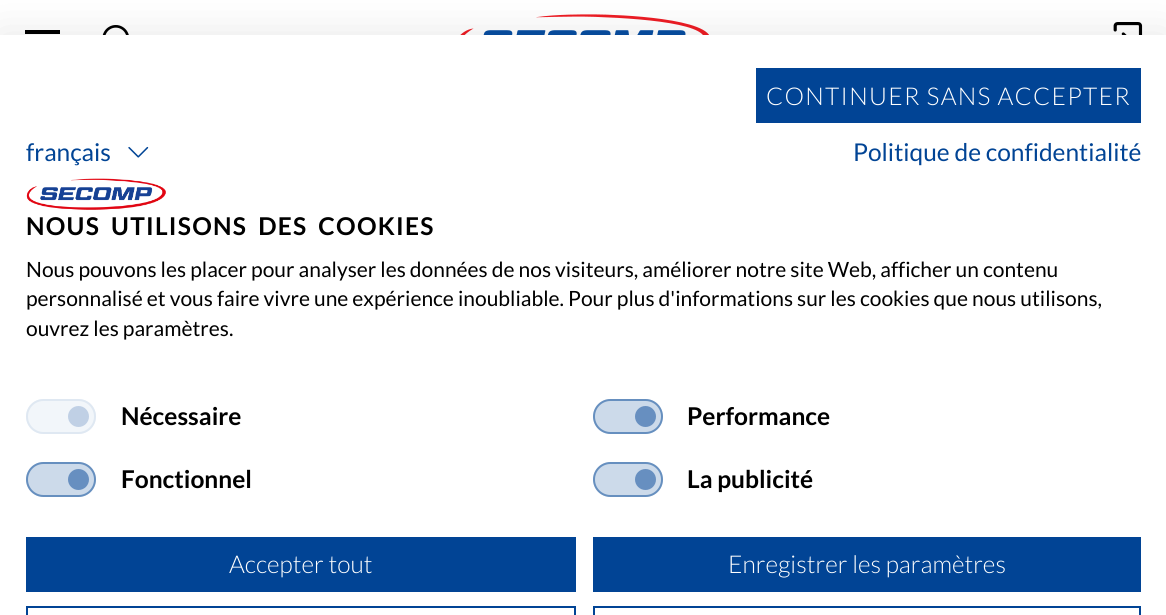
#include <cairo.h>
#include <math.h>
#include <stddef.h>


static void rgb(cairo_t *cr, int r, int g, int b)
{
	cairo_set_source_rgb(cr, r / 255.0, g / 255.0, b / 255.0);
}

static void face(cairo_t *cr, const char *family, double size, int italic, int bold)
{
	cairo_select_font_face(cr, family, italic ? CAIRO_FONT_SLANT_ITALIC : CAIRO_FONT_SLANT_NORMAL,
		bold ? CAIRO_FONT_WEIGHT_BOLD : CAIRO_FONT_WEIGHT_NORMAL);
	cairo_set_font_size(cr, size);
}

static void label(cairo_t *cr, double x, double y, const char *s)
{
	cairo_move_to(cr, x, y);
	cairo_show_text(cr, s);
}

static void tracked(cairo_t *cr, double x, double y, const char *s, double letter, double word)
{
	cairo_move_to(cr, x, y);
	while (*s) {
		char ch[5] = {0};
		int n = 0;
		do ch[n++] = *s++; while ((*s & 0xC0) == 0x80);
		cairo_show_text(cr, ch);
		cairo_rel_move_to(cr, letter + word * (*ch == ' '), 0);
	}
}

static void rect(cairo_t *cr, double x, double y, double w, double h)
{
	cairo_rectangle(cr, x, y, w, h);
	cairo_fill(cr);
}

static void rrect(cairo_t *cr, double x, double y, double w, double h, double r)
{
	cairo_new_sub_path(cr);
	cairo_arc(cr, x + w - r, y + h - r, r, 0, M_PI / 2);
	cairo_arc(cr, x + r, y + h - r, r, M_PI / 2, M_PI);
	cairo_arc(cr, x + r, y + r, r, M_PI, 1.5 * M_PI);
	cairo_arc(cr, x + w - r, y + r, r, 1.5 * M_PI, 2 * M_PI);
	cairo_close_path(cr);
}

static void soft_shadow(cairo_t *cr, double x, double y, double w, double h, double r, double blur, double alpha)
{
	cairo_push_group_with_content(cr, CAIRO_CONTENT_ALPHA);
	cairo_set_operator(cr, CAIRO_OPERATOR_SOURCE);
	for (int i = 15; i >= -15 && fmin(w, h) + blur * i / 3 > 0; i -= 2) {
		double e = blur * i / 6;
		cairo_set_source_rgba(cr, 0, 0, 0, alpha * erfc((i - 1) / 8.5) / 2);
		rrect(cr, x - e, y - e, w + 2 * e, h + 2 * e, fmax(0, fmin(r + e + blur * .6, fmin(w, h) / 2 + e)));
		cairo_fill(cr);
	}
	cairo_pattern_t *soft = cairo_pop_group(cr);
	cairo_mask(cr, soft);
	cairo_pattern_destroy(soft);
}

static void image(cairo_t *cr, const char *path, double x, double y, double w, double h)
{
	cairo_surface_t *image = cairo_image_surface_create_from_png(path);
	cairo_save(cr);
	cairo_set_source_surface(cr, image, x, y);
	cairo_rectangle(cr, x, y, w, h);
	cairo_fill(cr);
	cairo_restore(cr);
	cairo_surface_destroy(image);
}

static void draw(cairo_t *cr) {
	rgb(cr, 255, 255, 255);
	cairo_paint(cr);
	rgb(cr, 0, 0, 0);
	rect(cr, 25, 30, 35, 4);
	image(cr, "image0.png", 102, 25, 27, 10);
	image(cr, "image1.png", 460, 14, 249, 21);
	image(cr, "image2.png", 1113, 22, 30, 13);
	rgb(cr, 0, 0, 0);
	soft_shadow(cr, 0, 35, 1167, 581, 0, 21, 0.1);
	rgb(cr, 255, 255, 255);
	rect(cr, 0, 35, 1166, 580);
	rgb(cr, 1, 68, 149);
	rect(cr, 756, 68, 385, 55);
	face(cr, "Lato Light", 24.5, 0, 0);
	rgb(cr, 255, 255, 255);
	tracked(cr, 766, 105, "CONTINUER SANS ACCEPTER", 1.25, 0);
	face(cr, "Lato", 24.5, 0, 0);
	rgb(cr, 1, 68, 149);
	label(cr, 26, 161, "français");
	image(cr, "image3.png", 128, 146, 21, 12);
	label(cr, 853, 161, "Politique de confidentialité");
	image(cr, "image4.png", 26, 178, 140, 32);
	face(cr, "Lato", 24.5, 0, 1);
	rgb(cr, 0, 0, 0);
	tracked(cr, 26, 235, "NOUS UTILISONS DES COOKIES", 1.25, 5);
	face(cr, "Lato", 21, 0, 0);
	label(cr, 26, 277, "Nous pouvons les placer pour analyser les données de nos visiteurs, améliorer notre site Web, afficher un contenu");
	label(cr, 26, 306, "personnalisé et vous faire vivre une expérience inoubliable. Pour plus d'informations sur les cookies que nous utilisons,");
	label(cr, 26, 336, "ouvrez les paramètres.");
	rgb(cr, 242, 246, 250);
	rrect(cr, 26, 399, 70, 35, 17.5);
	cairo_fill(cr);
	rgb(cr, 192, 208, 229);
	cairo_arc(cr, 78.5, 416.5, 10.5, 0, 2 * M_PI);
	cairo_fill(cr);
	rrect(cr, 27, 400, 68, 33, 16.5);
	rgb(cr, 223, 232, 242);
	cairo_stroke(cr);
	face(cr, "Lato", 24.5, 0, 1);
	rgb(cr, 0, 0, 0);
	label(cr, 121, 425, "Nécessaire");
	rgb(cr, 204, 218, 234);
	rrect(cr, 593, 399, 70, 35, 17.5);
	cairo_fill(cr);
	rgb(cr, 103, 143, 192);
	cairo_arc(cr, 645.5, 416.5, 10.5, 0, 2 * M_PI);
	cairo_fill(cr);
	rrect(cr, 594, 400, 68, 33, 16.5);
	cairo_set_source_rgba(cr, 0.004, 0.267, 0.584, 0.5);
	cairo_stroke(cr);
	rgb(cr, 0, 0, 0);
	label(cr, 687, 425, "Performance");
	rgb(cr, 204, 218, 234);
	rrect(cr, 26, 462, 70, 35, 17.5);
	cairo_fill(cr);
	rgb(cr, 103, 143, 192);
	cairo_arc(cr, 78.5, 479.5, 10.5, 0, 2 * M_PI);
	cairo_fill(cr);
	rrect(cr, 27, 463, 68, 33, 16.5);
	cairo_set_source_rgba(cr, 0.004, 0.267, 0.584, 0.5);
	cairo_stroke(cr);
	rgb(cr, 0, 0, 0);
	label(cr, 121, 488, "Fonctionnel");
	rgb(cr, 204, 218, 234);
	rrect(cr, 593, 462, 70, 35, 17.5);
	cairo_fill(cr);
	rgb(cr, 103, 143, 192);
	cairo_arc(cr, 645.5, 479.5, 10.5, 0, 2 * M_PI);
	cairo_fill(cr);
	rrect(cr, 594, 463, 68, 33, 16.5);
	cairo_set_source_rgba(cr, 0.004, 0.267, 0.584, 0.5);
	cairo_stroke(cr);
	rgb(cr, 0, 0, 0);
	label(cr, 687, 488, "La publicité");
	rgb(cr, 1, 68, 149);
	rect(cr, 26, 537, 550, 55);
	face(cr, "Lato Light", 24.5, 0, 0);
	rgb(cr, 255, 255, 255);
	label(cr, 229, 573, "Accepter tout");
	rgb(cr, 1, 68, 149);
	rect(cr, 593, 537, 548, 55);
	rgb(cr, 255, 255, 255);
	label(cr, 728, 573, "Enregistrer les paramètres");
	cairo_rectangle(cr, 27, 607, 548, 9);
	rgb(cr, 1, 68, 149);
	cairo_stroke(cr);
	cairo_rectangle(cr, 594, 607, 546, 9);
	cairo_stroke(cr);
}

int main(void) {
	cairo_surface_t *surface = cairo_image_surface_create(CAIRO_FORMAT_RGB24, 1166, 615);
	cairo_t *cr = cairo_create(surface);
	cairo_font_options_t *options = cairo_font_options_create();
	cairo_font_options_set_hint_metrics(options, CAIRO_HINT_METRICS_OFF);
	cairo_font_options_set_hint_style(options, CAIRO_HINT_STYLE_NONE);
	cairo_set_font_options(cr, options);
	cairo_set_miter_limit(cr, 4);
	draw(cr);
	cairo_surface_write_to_png(surface, "render.png");
	cairo_font_options_destroy(options);
	cairo_destroy(cr);
	cairo_surface_destroy(surface);
	return 0;
}
